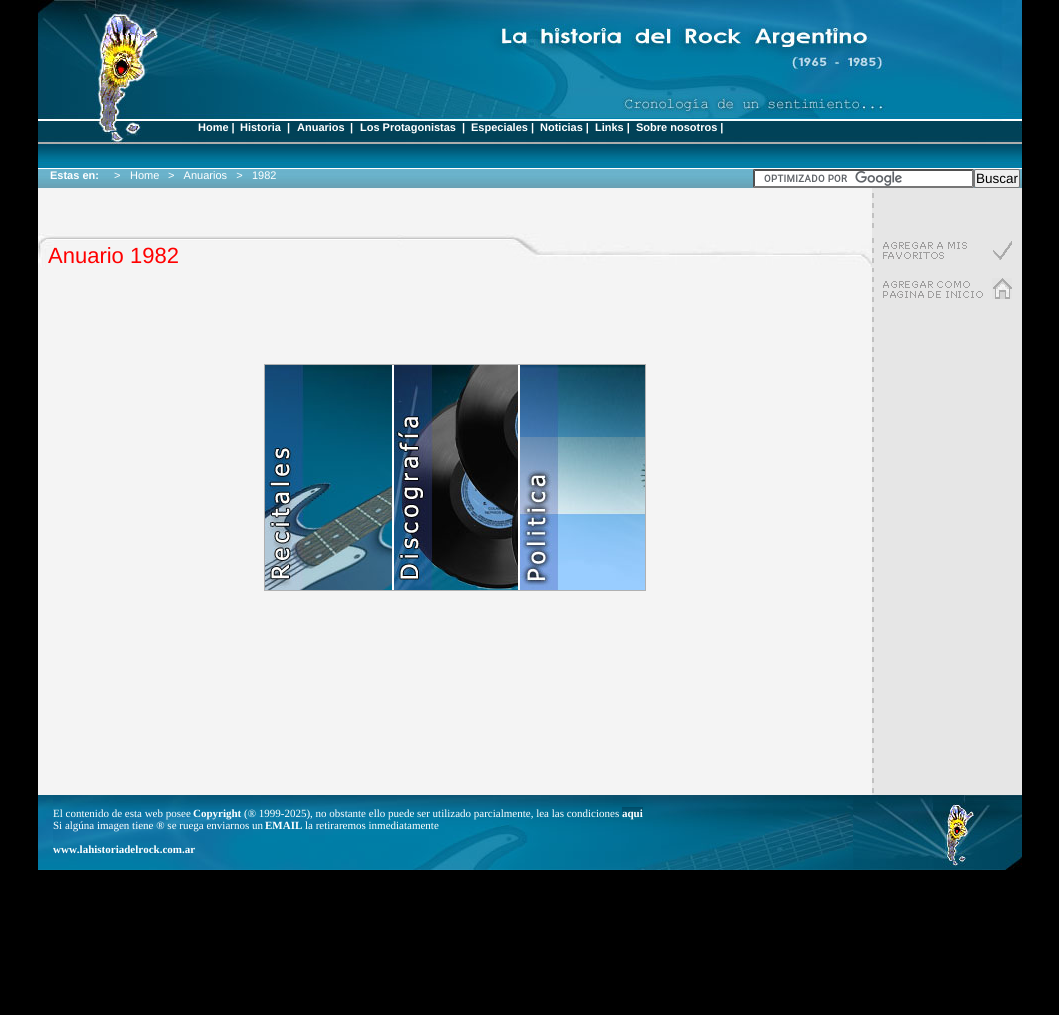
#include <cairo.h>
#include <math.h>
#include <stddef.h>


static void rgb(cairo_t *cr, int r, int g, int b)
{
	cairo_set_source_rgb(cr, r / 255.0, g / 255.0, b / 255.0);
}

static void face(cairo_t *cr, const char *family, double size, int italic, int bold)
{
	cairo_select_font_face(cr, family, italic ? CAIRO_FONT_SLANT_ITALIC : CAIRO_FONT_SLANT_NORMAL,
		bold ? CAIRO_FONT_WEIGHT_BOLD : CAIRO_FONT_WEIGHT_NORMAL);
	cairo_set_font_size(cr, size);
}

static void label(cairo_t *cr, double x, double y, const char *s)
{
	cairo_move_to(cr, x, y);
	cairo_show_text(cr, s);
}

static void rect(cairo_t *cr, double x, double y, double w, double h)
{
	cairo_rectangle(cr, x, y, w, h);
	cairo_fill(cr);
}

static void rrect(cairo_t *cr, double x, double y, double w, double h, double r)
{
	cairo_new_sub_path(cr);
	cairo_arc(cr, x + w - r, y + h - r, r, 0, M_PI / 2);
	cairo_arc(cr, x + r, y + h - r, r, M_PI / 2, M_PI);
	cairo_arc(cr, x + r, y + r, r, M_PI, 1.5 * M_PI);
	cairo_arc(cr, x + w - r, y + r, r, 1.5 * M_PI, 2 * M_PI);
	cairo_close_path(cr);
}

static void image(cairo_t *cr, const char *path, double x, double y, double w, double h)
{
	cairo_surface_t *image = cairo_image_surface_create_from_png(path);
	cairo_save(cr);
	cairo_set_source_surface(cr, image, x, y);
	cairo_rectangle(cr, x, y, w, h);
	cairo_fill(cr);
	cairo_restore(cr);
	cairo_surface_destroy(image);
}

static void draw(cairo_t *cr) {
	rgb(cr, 0, 0, 0);
	cairo_paint(cr);
	image(cr, "image0.png", 38, 0, 984, 121);
	image(cr, "image1.png", 38, 121, 984, 24);
	face(cr, "Liberation Sans", 11, 0, 1);
	rgb(cr, 255, 255, 255);
	label(cr, 198, 131, "Home |");
	label(cr, 240, 131, "Historia");
	label(cr, 287, 131, "|");
	label(cr, 297, 131, "Anuarios");
	label(cr, 350, 131, "|");
	label(cr, 360, 131, "Los Protagonistas");
	label(cr, 462, 131, "|");
	label(cr, 471, 131, "Especiales |");
	label(cr, 540, 131, "Noticias |");
	label(cr, 595, 131, "Links |");
	label(cr, 636, 131, "Sobre nosotros |");
	image(cr, "image2.png", 38, 145, 984, 24);
	image(cr, "image3.png", 38, 169, 984, 19);
	label(cr, 50, 179, "Estas en:");
	face(cr, "Liberation Sans", 11, 0, 0);
	label(cr, 114, 179, ">");
	label(cr, 130, 179, "Home");
	label(cr, 168, 179, ">   Anuarios   >");
	label(cr, 252, 179, "1982");
	rect(cr, 753, 169, 221, 19);
	image(cr, "image4.png", 764, 171, 138, 15);
	rgb(cr, 79, 79, 79);
	cairo_new_path(cr);
	cairo_move_to(cr, 753, 169);
	cairo_line_to(cr, 974, 169);
	cairo_line_to(cr, 972, 171);
	cairo_line_to(cr, 755, 171);
	cairo_close_path(cr);
	cairo_fill(cr);
	rgb(cr, 118, 118, 118);
	cairo_new_path(cr);
	cairo_move_to(cr, 974, 169);
	cairo_line_to(cr, 974, 188);
	cairo_line_to(cr, 972, 186);
	cairo_line_to(cr, 972, 171);
	cairo_close_path(cr);
	cairo_fill(cr);
	cairo_new_path(cr);
	cairo_move_to(cr, 974, 188);
	cairo_line_to(cr, 753, 188);
	cairo_line_to(cr, 755, 186);
	cairo_line_to(cr, 972, 186);
	cairo_close_path(cr);
	cairo_fill(cr);
	rgb(cr, 79, 79, 79);
	cairo_new_path(cr);
	cairo_move_to(cr, 753, 188);
	cairo_line_to(cr, 753, 169);
	cairo_line_to(cr, 755, 171);
	cairo_line_to(cr, 755, 186);
	cairo_close_path(cr);
	cairo_fill(cr);
	rgb(cr, 239, 239, 239);
	rrect(cr, 974.5, 169.5, 45, 18, 1.5);
	cairo_fill_preserve(cr);
	rgb(cr, 118, 118, 118);
	cairo_set_line_width(cr, 1);
	cairo_stroke(cr);
	face(cr, "Liberation Sans", 13.5, 0, 0);
	rgb(cr, 0, 0, 0);
	label(cr, 976, 183, "Buscar");
	rgb(cr, 244, 244, 244);
	rect(cr, 38, 188, 834, 607);
	image(cr, "image5.png", 872, 188, 150, 45);
	image(cr, "image6.png", 38, 233, 834, 34);
	face(cr, "Liberation Sans", 22, 0, 0);
	rgb(cr, 255, 0, 0);
	label(cr, 48, 263, "Anuario 1982");
	image(cr, "image7.png", 872, 233, 150, 39);
	image(cr, "image8.png", 883, 241, 129, 19);
	cairo_rectangle(cr, 264.5, 364.5, 381, 226);
	rgb(cr, 176, 176, 176);
	cairo_stroke(cr);
	image(cr, "image9.png", 265, 365, 127, 225);
	rgb(cr, 255, 255, 255);
	rect(cr, 392, 365, 2, 225);
	image(cr, "image10.png", 394, 365, 124, 225);
	rect(cr, 518, 365, 2, 225);
	image(cr, "image11.png", 520, 365, 125, 225);
	image(cr, "image12.png", 872, 272, 150, 411);
	image(cr, "image13.png", 883, 278, 129, 21);
	image(cr, "image14.png", 872, 683, 150, 112);
	image(cr, "image15.png", 38, 795, 984, 75);
	image(cr, "image16.png", 53, 795, 800, 75);
	face(cr, "Liberation Serif", 11, 0, 0);
	label(cr, 53, 817, "El contenido de esta web posee");
	face(cr, "Liberation Serif", 11, 0, 1);
	label(cr, 193, 817, "Copyright");
	face(cr, "Liberation Serif", 11, 0, 0);
	label(cr, 244, 817, "(® 1999-2025), no obstante ello puede ser utilizado parcialmente, lea las condiciones");
	image(cr, "image17.png", 622, 807, 21, 12);
	face(cr, "Liberation Serif", 11, 0, 1);
	label(cr, 622, 817, "aqui");
	face(cr, "Liberation Serif", 11, 0, 0);
	label(cr, 53, 829, "Si algúna imagen tiene ® se ruega enviarnos un");
	face(cr, "Liberation Serif", 11, 0, 1);
	label(cr, 265, 829, "EMAIL");
	face(cr, "Liberation Serif", 11, 0, 0);
	label(cr, 305, 829, "la retiraremos inmediatamente");
	face(cr, "Liberation Serif", 11, 0, 1);
	label(cr, 53, 853, "www.lahistoriadelrock.com.ar");
}

int main(void) {
	cairo_surface_t *surface = cairo_image_surface_create(CAIRO_FORMAT_RGB24, 1059, 1015);
	cairo_t *cr = cairo_create(surface);
	cairo_font_options_t *options = cairo_font_options_create();
	cairo_font_options_set_hint_metrics(options, CAIRO_HINT_METRICS_OFF);
	cairo_font_options_set_hint_style(options, CAIRO_HINT_STYLE_NONE);
	cairo_set_font_options(cr, options);
	cairo_set_miter_limit(cr, 4);
	draw(cr);
	cairo_surface_write_to_png(surface, "render.png");
	cairo_font_options_destroy(options);
	cairo_destroy(cr);
	cairo_surface_destroy(surface);
	return 0;
}
